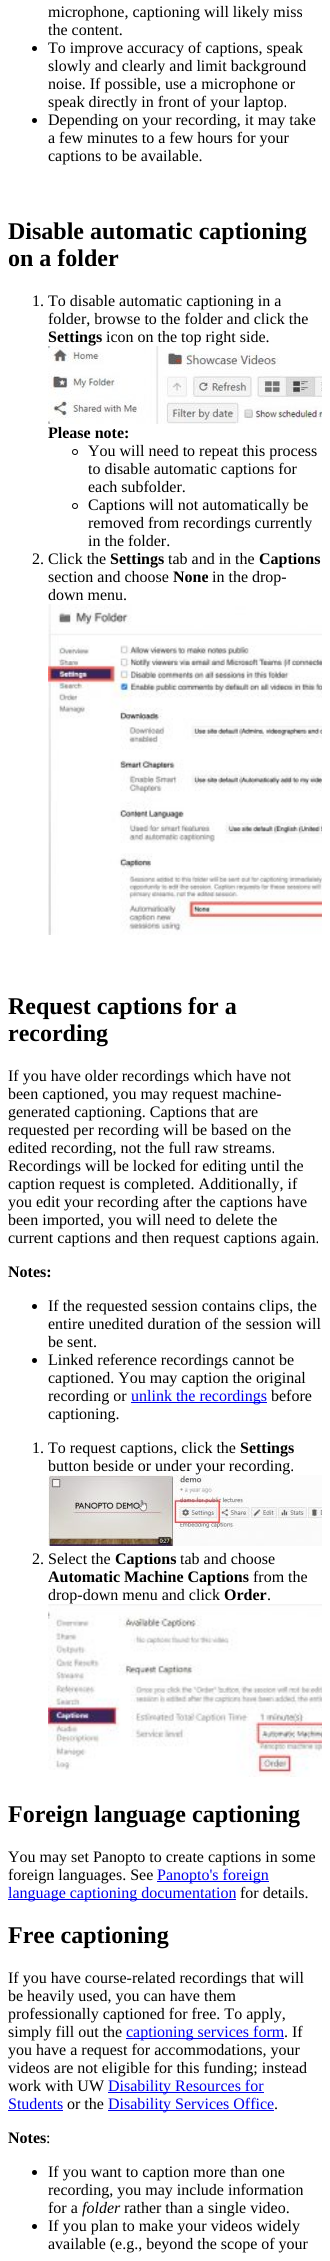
#include <cairo.h>
#include <math.h>
#include <stddef.h>


static void rgb(cairo_t *cr, int r, int g, int b)
{
	cairo_set_source_rgb(cr, r / 255.0, g / 255.0, b / 255.0);
}

static void face(cairo_t *cr, const char *family, double size, int italic, int bold)
{
	cairo_select_font_face(cr, family, italic ? CAIRO_FONT_SLANT_ITALIC : CAIRO_FONT_SLANT_NORMAL,
		bold ? CAIRO_FONT_WEIGHT_BOLD : CAIRO_FONT_WEIGHT_NORMAL);
	cairo_set_font_size(cr, size);
}

static void label(cairo_t *cr, double x, double y, const char *s)
{
	cairo_move_to(cr, x, y);
	cairo_show_text(cr, s);
}

static void rect(cairo_t *cr, double x, double y, double w, double h)
{
	cairo_rectangle(cr, x, y, w, h);
	cairo_fill(cr);
}

static void image(cairo_t *cr, const char *path, double x, double y, double w, double h)
{
	cairo_surface_t *image = cairo_image_surface_create_from_png(path);
	cairo_save(cr);
	cairo_set_source_surface(cr, image, x, y);
	cairo_rectangle(cr, x, y, w, h);
	cairo_fill(cr);
	cairo_restore(cr);
	cairo_surface_destroy(image);
}

static void draw(cairo_t *cr) {
	rgb(cr, 255, 255, 255);
	cairo_paint(cr);
	face(cr, "Liberation Serif", 16, 0, 0);
	rgb(cr, 0, 0, 0);
	label(cr, 48, 17, "microphone, captioning will likely miss");
	label(cr, 48, 35, "the content.");
	cairo_new_path(cr);
	cairo_arc(cr, 34.5, 48.5, 2.5, 0, 2 * M_PI);
	cairo_fill(cr);
	label(cr, 48, 53, "To improve accuracy of captions, speak");
	label(cr, 48, 71, "slowly and clearly and limit background");
	label(cr, 48, 89, "noise. If possible, use a microphone or");
	label(cr, 48, 107, "speak directly in front of your laptop.");
	cairo_new_path(cr);
	cairo_arc(cr, 34.5, 120.5, 2.5, 0, 2 * M_PI);
	cairo_fill(cr);
	label(cr, 48, 125, "Depending on your recording, it may take");
	label(cr, 48, 143, "a few minutes to a few hours for your");
	label(cr, 48, 161, "captions to be available.");
	face(cr, "Liberation Serif", 24, 0, 1);
	label(cr, 8, 239, "Disable automatic captioning");
	label(cr, 8, 266, "on a folder");
	face(cr, "Liberation Serif", 16, 0, 0);
	label(cr, 32, 306, "1. To disable automatic captioning in a");
	label(cr, 48, 324, "folder, browse to the folder and click the");
	face(cr, "Liberation Serif", 16, 0, 1);
	label(cr, 48, 342, "Settings");
	face(cr, "Liberation Serif", 16, 0, 0);
	label(cr, 106, 342, "icon on the top right side.");
	image(cr, "image0.png", 48, 346, 274, 78);
	face(cr, "Liberation Serif", 16, 0, 1);
	label(cr, 48, 438, "Please note:");
	cairo_new_path(cr);
	cairo_arc(cr, 75, 452, 2.5, 0, 2 * M_PI);
	cairo_set_line_width(cr, 1);
	cairo_stroke(cr);
	face(cr, "Liberation Serif", 16, 0, 0);
	label(cr, 88, 456, "You will need to repeat this process");
	label(cr, 88, 474, "to disable automatic captions for");
	label(cr, 88, 492, "each subfolder.");
	cairo_new_path(cr);
	cairo_arc(cr, 75, 506, 2.5, 0, 2 * M_PI);
	cairo_stroke(cr);
	label(cr, 88, 510, "Captions will not automatically be");
	label(cr, 88, 528, "removed from recordings currently");
	label(cr, 88, 546, "in the folder.");
	label(cr, 32, 564, "2. Click the");
	face(cr, "Liberation Serif", 16, 0, 1);
	label(cr, 110, 564, "Settings");
	face(cr, "Liberation Serif", 16, 0, 0);
	label(cr, 168, 564, "tab and in the");
	face(cr, "Liberation Serif", 16, 0, 1);
	label(cr, 259, 564, "Captions");
	face(cr, "Liberation Serif", 16, 0, 0);
	label(cr, 48, 582, "section and choose");
	face(cr, "Liberation Serif", 16, 0, 1);
	label(cr, 173, 582, "None");
	face(cr, "Liberation Serif", 16, 0, 0);
	label(cr, 212, 582, "in the drop-");
	label(cr, 48, 600, "down menu.");
	image(cr, "image1.png", 48, 604, 274, 331);
	face(cr, "Liberation Serif", 24, 0, 1);
	label(cr, 8, 1014, "Request captions for a");
	label(cr, 8, 1041, "recording");
	face(cr, "Liberation Serif", 16, 0, 0);
	label(cr, 8, 1081, "If you have older recordings which have not");
	label(cr, 8, 1099, "been captioned, you may request machine-");
	label(cr, 8, 1117, "generated captioning. Captions that are");
	label(cr, 8, 1135, "requested per recording will be based on the");
	label(cr, 8, 1153, "edited recording, not the full raw streams.");
	label(cr, 8, 1171, "Recordings will be locked for editing until the");
	label(cr, 8, 1189, "caption request is completed. Additionally, if");
	label(cr, 8, 1207, "you edit your recording after the captions have");
	label(cr, 8, 1225, "been imported, you will need to delete the");
	label(cr, 8, 1243, "current captions and then request captions again.");
	face(cr, "Liberation Serif", 16, 0, 1);
	label(cr, 8, 1277, "Notes:");
	cairo_new_path(cr);
	cairo_arc(cr, 34.5, 1306.5, 2.5, 0, 2 * M_PI);
	cairo_fill(cr);
	face(cr, "Liberation Serif", 16, 0, 0);
	label(cr, 48, 1311, "If the requested session contains clips, the");
	label(cr, 48, 1329, "entire unedited duration of the session will");
	label(cr, 48, 1347, "be sent.");
	cairo_new_path(cr);
	cairo_arc(cr, 34.5, 1360.5, 2.5, 0, 2 * M_PI);
	cairo_fill(cr);
	label(cr, 48, 1365, "Linked reference recordings cannot be");
	label(cr, 48, 1383, "captioned. You may caption the original");
	label(cr, 48, 1401, "recording or");
	rgb(cr, 0, 0, 238);
	rect(cr, 131, 1402, 136, 1);
	label(cr, 131, 1401, "unlink the recordings");
	rgb(cr, 0, 0, 0);
	label(cr, 271, 1401, "before");
	label(cr, 48, 1419, "captioning.");
	label(cr, 32, 1453, "1. To request captions, click the");
	face(cr, "Liberation Serif", 16, 0, 1);
	label(cr, 240, 1453, "Settings");
	face(cr, "Liberation Serif", 16, 0, 0);
	label(cr, 48, 1471, "button beside or under your recording.");
	image(cr, "image2.png", 48, 1475, 274, 71);
	label(cr, 32, 1564, "2. Select the");
	face(cr, "Liberation Serif", 16, 0, 1);
	label(cr, 115, 1564, "Captions");
	face(cr, "Liberation Serif", 16, 0, 0);
	label(cr, 180, 1564, "tab and choose");
	face(cr, "Liberation Serif", 16, 0, 1);
	label(cr, 48, 1582, "Automatic Machine Captions");
	face(cr, "Liberation Serif", 16, 0, 0);
	label(cr, 253, 1582, "from the");
	label(cr, 48, 1600, "drop-down menu and click");
	face(cr, "Liberation Serif", 16, 0, 1);
	label(cr, 224, 1600, "Order");
	face(cr, "Liberation Serif", 16, 0, 0);
	label(cr, 267, 1600, ".");
	image(cr, "image3.png", 48, 1604, 274, 173);
	face(cr, "Liberation Serif", 24, 0, 1);
	label(cr, 8, 1822, "Foreign language captioning");
	face(cr, "Liberation Serif", 16, 0, 0);
	label(cr, 8, 1862, "You may set Panopto to create captions in some");
	label(cr, 8, 1880, "foreign languages. See");
	rgb(cr, 0, 0, 238);
	rect(cr, 157, 1881, 112, 1);
	label(cr, 157, 1880, "Panopto's foreign");
	rect(cr, 8, 1899, 228, 1);
	label(cr, 8, 1898, "language captioning documentation");
	rgb(cr, 0, 0, 0);
	label(cr, 240, 1898, "for details.");
	face(cr, "Liberation Serif", 24, 0, 1);
	label(cr, 8, 1943, "Free captioning");
	face(cr, "Liberation Serif", 16, 0, 0);
	label(cr, 8, 1983, "If you have course-related recordings that will");
	label(cr, 8, 2001, "be heavily used, you can have them");
	label(cr, 8, 2019, "professionally captioned for free. To apply,");
	label(cr, 8, 2037, "simply fill out the");
	rgb(cr, 0, 0, 238);
	rect(cr, 126, 2038, 158, 1);
	label(cr, 126, 2037, "captioning services form");
	rgb(cr, 0, 0, 0);
	label(cr, 284, 2037, ". If");
	label(cr, 8, 2055, "you have a request for accommodations, your");
	label(cr, 8, 2073, "videos are not eligible for this funding; instead");
	label(cr, 8, 2091, "work with UW");
	rgb(cr, 0, 0, 238);
	rect(cr, 108, 2092, 156, 1);
	label(cr, 108, 2091, "Disability Resources for");
	label(cr, 8, 2109, "Students");
	rect(cr, 8, 2110, 55, 1);
	rgb(cr, 0, 0, 0);
	label(cr, 67, 2109, "or the");
	rgb(cr, 0, 0, 238);
	rect(cr, 108, 2110, 166, 1);
	label(cr, 108, 2109, "Disability Services Office");
	rgb(cr, 0, 0, 0);
	label(cr, 274, 2109, ".");
	face(cr, "Liberation Serif", 16, 0, 1);
	label(cr, 8, 2143, "Notes");
	face(cr, "Liberation Serif", 16, 0, 0);
	label(cr, 46, 2143, ":");
	cairo_new_path(cr);
	cairo_arc(cr, 34.5, 2172.5, 2.5, 0, 2 * M_PI);
	cairo_fill(cr);
	label(cr, 48, 2177, "If you want to caption more than one");
	label(cr, 48, 2195, "recording, you may include information");
	label(cr, 48, 2213, "for a");
	face(cr, "Liberation Serif", 16, 1, 0);
	label(cr, 82, 2213, "folder");
	face(cr, "Liberation Serif", 16, 0, 0);
	label(cr, 124, 2213, "rather than a single video.");
	cairo_new_path(cr);
	cairo_arc(cr, 34.5, 2226.5, 2.5, 0, 2 * M_PI);
	cairo_fill(cr);
	label(cr, 48, 2231, "If you plan to make your videos widely");
	label(cr, 48, 2249, "available (e.g., beyond the scope of your");
}

int main(void) {
	cairo_surface_t *surface = cairo_image_surface_create(CAIRO_FORMAT_RGB24, 330, 2261);
	cairo_t *cr = cairo_create(surface);
	cairo_font_options_t *options = cairo_font_options_create();
	cairo_font_options_set_hint_metrics(options, CAIRO_HINT_METRICS_OFF);
	cairo_font_options_set_hint_style(options, CAIRO_HINT_STYLE_NONE);
	cairo_set_font_options(cr, options);
	cairo_set_miter_limit(cr, 4);
	draw(cr);
	cairo_surface_write_to_png(surface, "render.png");
	cairo_font_options_destroy(options);
	cairo_destroy(cr);
	cairo_surface_destroy(surface);
	return 0;
}
